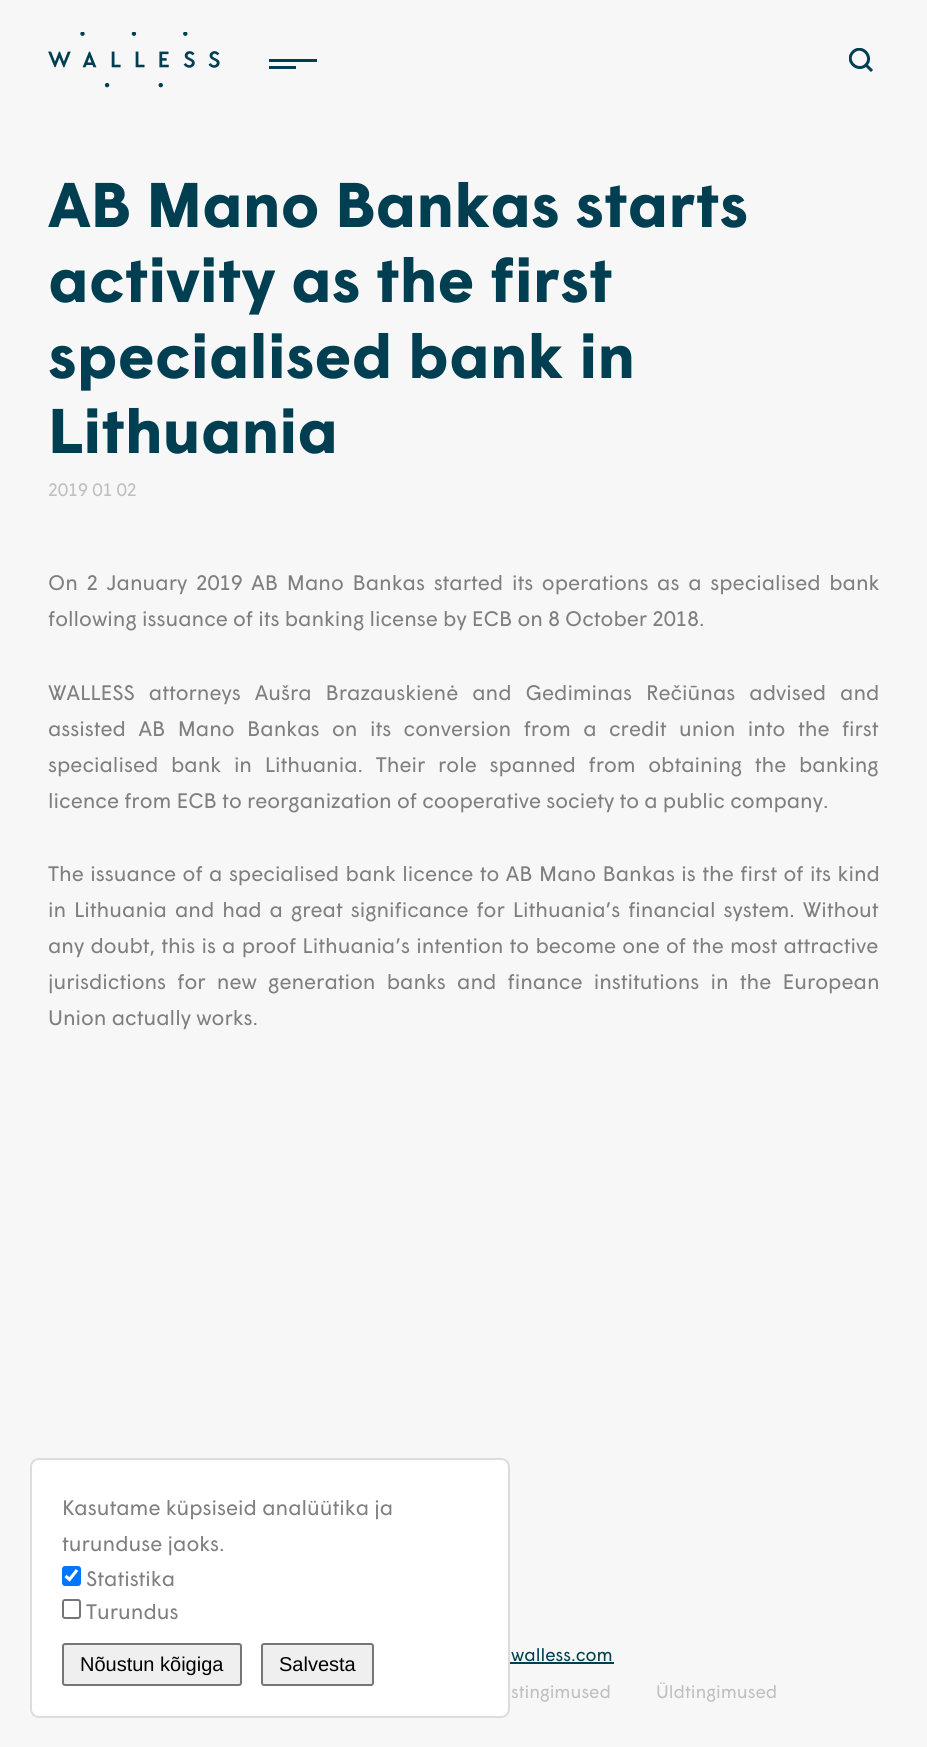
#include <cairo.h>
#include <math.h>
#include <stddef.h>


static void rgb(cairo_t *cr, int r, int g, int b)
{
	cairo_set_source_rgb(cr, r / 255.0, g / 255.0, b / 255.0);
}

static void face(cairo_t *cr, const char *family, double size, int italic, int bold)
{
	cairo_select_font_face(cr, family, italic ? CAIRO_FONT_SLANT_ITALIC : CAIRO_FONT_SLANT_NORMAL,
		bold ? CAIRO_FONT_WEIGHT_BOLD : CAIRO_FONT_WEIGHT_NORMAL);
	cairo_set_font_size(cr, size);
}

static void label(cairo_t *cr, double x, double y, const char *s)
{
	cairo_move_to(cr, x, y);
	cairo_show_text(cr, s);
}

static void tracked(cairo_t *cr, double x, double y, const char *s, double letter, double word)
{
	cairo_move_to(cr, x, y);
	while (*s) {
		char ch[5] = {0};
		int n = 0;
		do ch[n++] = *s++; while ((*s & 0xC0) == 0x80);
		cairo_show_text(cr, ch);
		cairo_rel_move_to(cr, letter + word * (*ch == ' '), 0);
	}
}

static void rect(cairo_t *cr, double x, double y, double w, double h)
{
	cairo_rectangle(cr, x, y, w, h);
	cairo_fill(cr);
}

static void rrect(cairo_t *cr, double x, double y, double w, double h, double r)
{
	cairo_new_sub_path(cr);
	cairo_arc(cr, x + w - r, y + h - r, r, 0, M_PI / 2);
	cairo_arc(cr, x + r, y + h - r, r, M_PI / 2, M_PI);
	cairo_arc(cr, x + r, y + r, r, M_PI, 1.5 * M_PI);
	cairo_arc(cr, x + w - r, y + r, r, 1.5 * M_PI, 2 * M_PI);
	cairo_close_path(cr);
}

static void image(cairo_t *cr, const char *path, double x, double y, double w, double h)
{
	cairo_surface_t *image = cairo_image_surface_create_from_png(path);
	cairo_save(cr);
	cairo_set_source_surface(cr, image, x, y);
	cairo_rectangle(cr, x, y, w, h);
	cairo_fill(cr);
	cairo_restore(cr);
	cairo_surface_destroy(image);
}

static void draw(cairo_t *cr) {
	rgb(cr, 247, 247, 247);
	cairo_paint(cr);
	image(cr, "image0.png", 48, 32, 172, 56);
	rgb(cr, 0, 62, 81);
	rect(cr, 269, 59, 48, 3);
	rect(cr, 269, 66, 27, 3);
	cairo_save(cr);
	cairo_rectangle(cr, 849, 48, 24, 24);
	cairo_clip(cr);
	cairo_new_path(cr);
	cairo_move_to(cr, 866, 65);
	cairo_line_to(cr, 872, 71);
	cairo_line_to(cr, 866, 65);
	cairo_curve_to(cr, 857.5, 73, 844.5, 60.5, 853, 52);
	cairo_curve_to(cr, 861.5, 43.5, 874, 56.5, 866, 65);
	cairo_close_path(cr);
	cairo_set_line_width(cr, 3);
	cairo_stroke(cr);
	cairo_restore(cr);
	face(cr, "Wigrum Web", 63, 0, 1);
	label(cr, 48, 227, "AB Mano Bankas starts");
	label(cr, 48, 302, "activity as the first");
	label(cr, 48, 378, "specialised bank in");
	label(cr, 48, 453, "Lithuania");
	face(cr, "Wigrum Web", 18, 0, 0);
	rgb(cr, 191, 191, 191);
	label(cr, 48, 496, "2019 01 02");
	face(cr, "Wigrum Web", 21, 0, 0);
	rgb(cr, 127, 127, 127);
	tracked(cr, 48, 590, "On 2 January 2019 AB Mano Bankas started its operations as a specialised bank", 0, 3.5);
	label(cr, 48, 626, "following issuance of its banking license by ECB on 8 October 2018.");
	tracked(cr, 48, 700, "WALLESS attorneys Aušra Brazauskienė and Gediminas Rečiūnas advised and", 0, 8.75);
	tracked(cr, 48, 736, "assisted AB Mano Bankas on its conversion from a credit union into the first", 0, 7.25);
	tracked(cr, 48, 772, "specialised bank in Lithuania. Their role spanned from obtaining the banking", 0, 7.5);
	label(cr, 48, 808, "licence from ECB to reorganization of cooperative society to a public company.");
	tracked(cr, 48, 881, "The issuance of a specialised bank licence to AB Mano Bankas is the first of its kind", 0, 1.25);
	tracked(cr, 48, 917, "in Lithuania and had a great significance for Lithuania’s financial system. Without", 0, 2.75);
	tracked(cr, 48, 953, "any doubt, this is a proof Lithuania’s intention to become one of the most attractive", 0, 1);
	tracked(cr, 48, 989, "jurisdictions for new generation banks and finance institutions in the European", 0, 6);
	label(cr, 48, 1025, "Union actually works.");
	rgb(cr, 255, 255, 255);
	rrect(cr, 31, 1459, 478, 258, 8);
	cairo_fill_preserve(cr);
	rgb(cr, 220, 220, 220);
	cairo_stroke(cr);
	rgb(cr, 127, 127, 127);
	label(cr, 62, 1515, "Kasutame küpsiseid analüütika ja");
	label(cr, 62, 1551, "turunduse jaoks.");
	rgb(cr, 0, 117, 255);
	rrect(cr, 62, 1566, 19, 20, 3);
	cairo_fill(cr);
	cairo_new_path(cr);
	cairo_move_to(cr, 65.5, 1576);
	cairo_line_to(cr, 69.5, 1579.5);
	cairo_line_to(cr, 77, 1570);
	rgb(cr, 255, 255, 255);
	cairo_set_line_width(cr, 3.1);
	cairo_stroke(cr);
	rgb(cr, 127, 127, 127);
	label(cr, 86, 1586, "Statistika");
	rrect(cr, 63, 1600, 17, 18, 2);
	rgb(cr, 118, 118, 118);
	cairo_set_line_width(cr, 2);
	cairo_stroke(cr);
	rgb(cr, 127, 127, 127);
	label(cr, 86, 1619, "Turundus");
	rgb(cr, 239, 239, 239);
	rrect(cr, 63, 1644, 178, 41, 2);
	cairo_fill_preserve(cr);
	rgb(cr, 118, 118, 118);
	cairo_stroke(cr);
	face(cr, "Liberation Sans", 20, 0, 0);
	rgb(cr, 0, 0, 0);
	label(cr, 80, 1671, "Nõustun kõigiga");
	rgb(cr, 239, 239, 239);
	rrect(cr, 262, 1644, 111, 41, 2);
	cairo_fill_preserve(cr);
	rgb(cr, 118, 118, 118);
	cairo_stroke(cr);
	rgb(cr, 0, 0, 0);
	label(cr, 279, 1671, "Salvesta");
	face(cr, "Wigrum Web", 18, 0, 0);
	rgb(cr, 0, 62, 81);
	label(cr, 511, 1661, "walless.com");
	rect(cr, 510, 1662, 104, 2);
	rgb(cr, 191, 191, 191);
	label(cr, 511, 1698, "stingimused");
	label(cr, 656, 1698, "Üldtingimused");
}

int main(void) {
	cairo_surface_t *surface = cairo_image_surface_create(CAIRO_FORMAT_RGB24, 927, 1747);
	cairo_t *cr = cairo_create(surface);
	cairo_font_options_t *options = cairo_font_options_create();
	cairo_font_options_set_hint_metrics(options, CAIRO_HINT_METRICS_OFF);
	cairo_font_options_set_hint_style(options, CAIRO_HINT_STYLE_NONE);
	cairo_set_font_options(cr, options);
	cairo_set_miter_limit(cr, 4);
	draw(cr);
	cairo_surface_write_to_png(surface, "render.png");
	cairo_font_options_destroy(options);
	cairo_destroy(cr);
	cairo_surface_destroy(surface);
	return 0;
}
